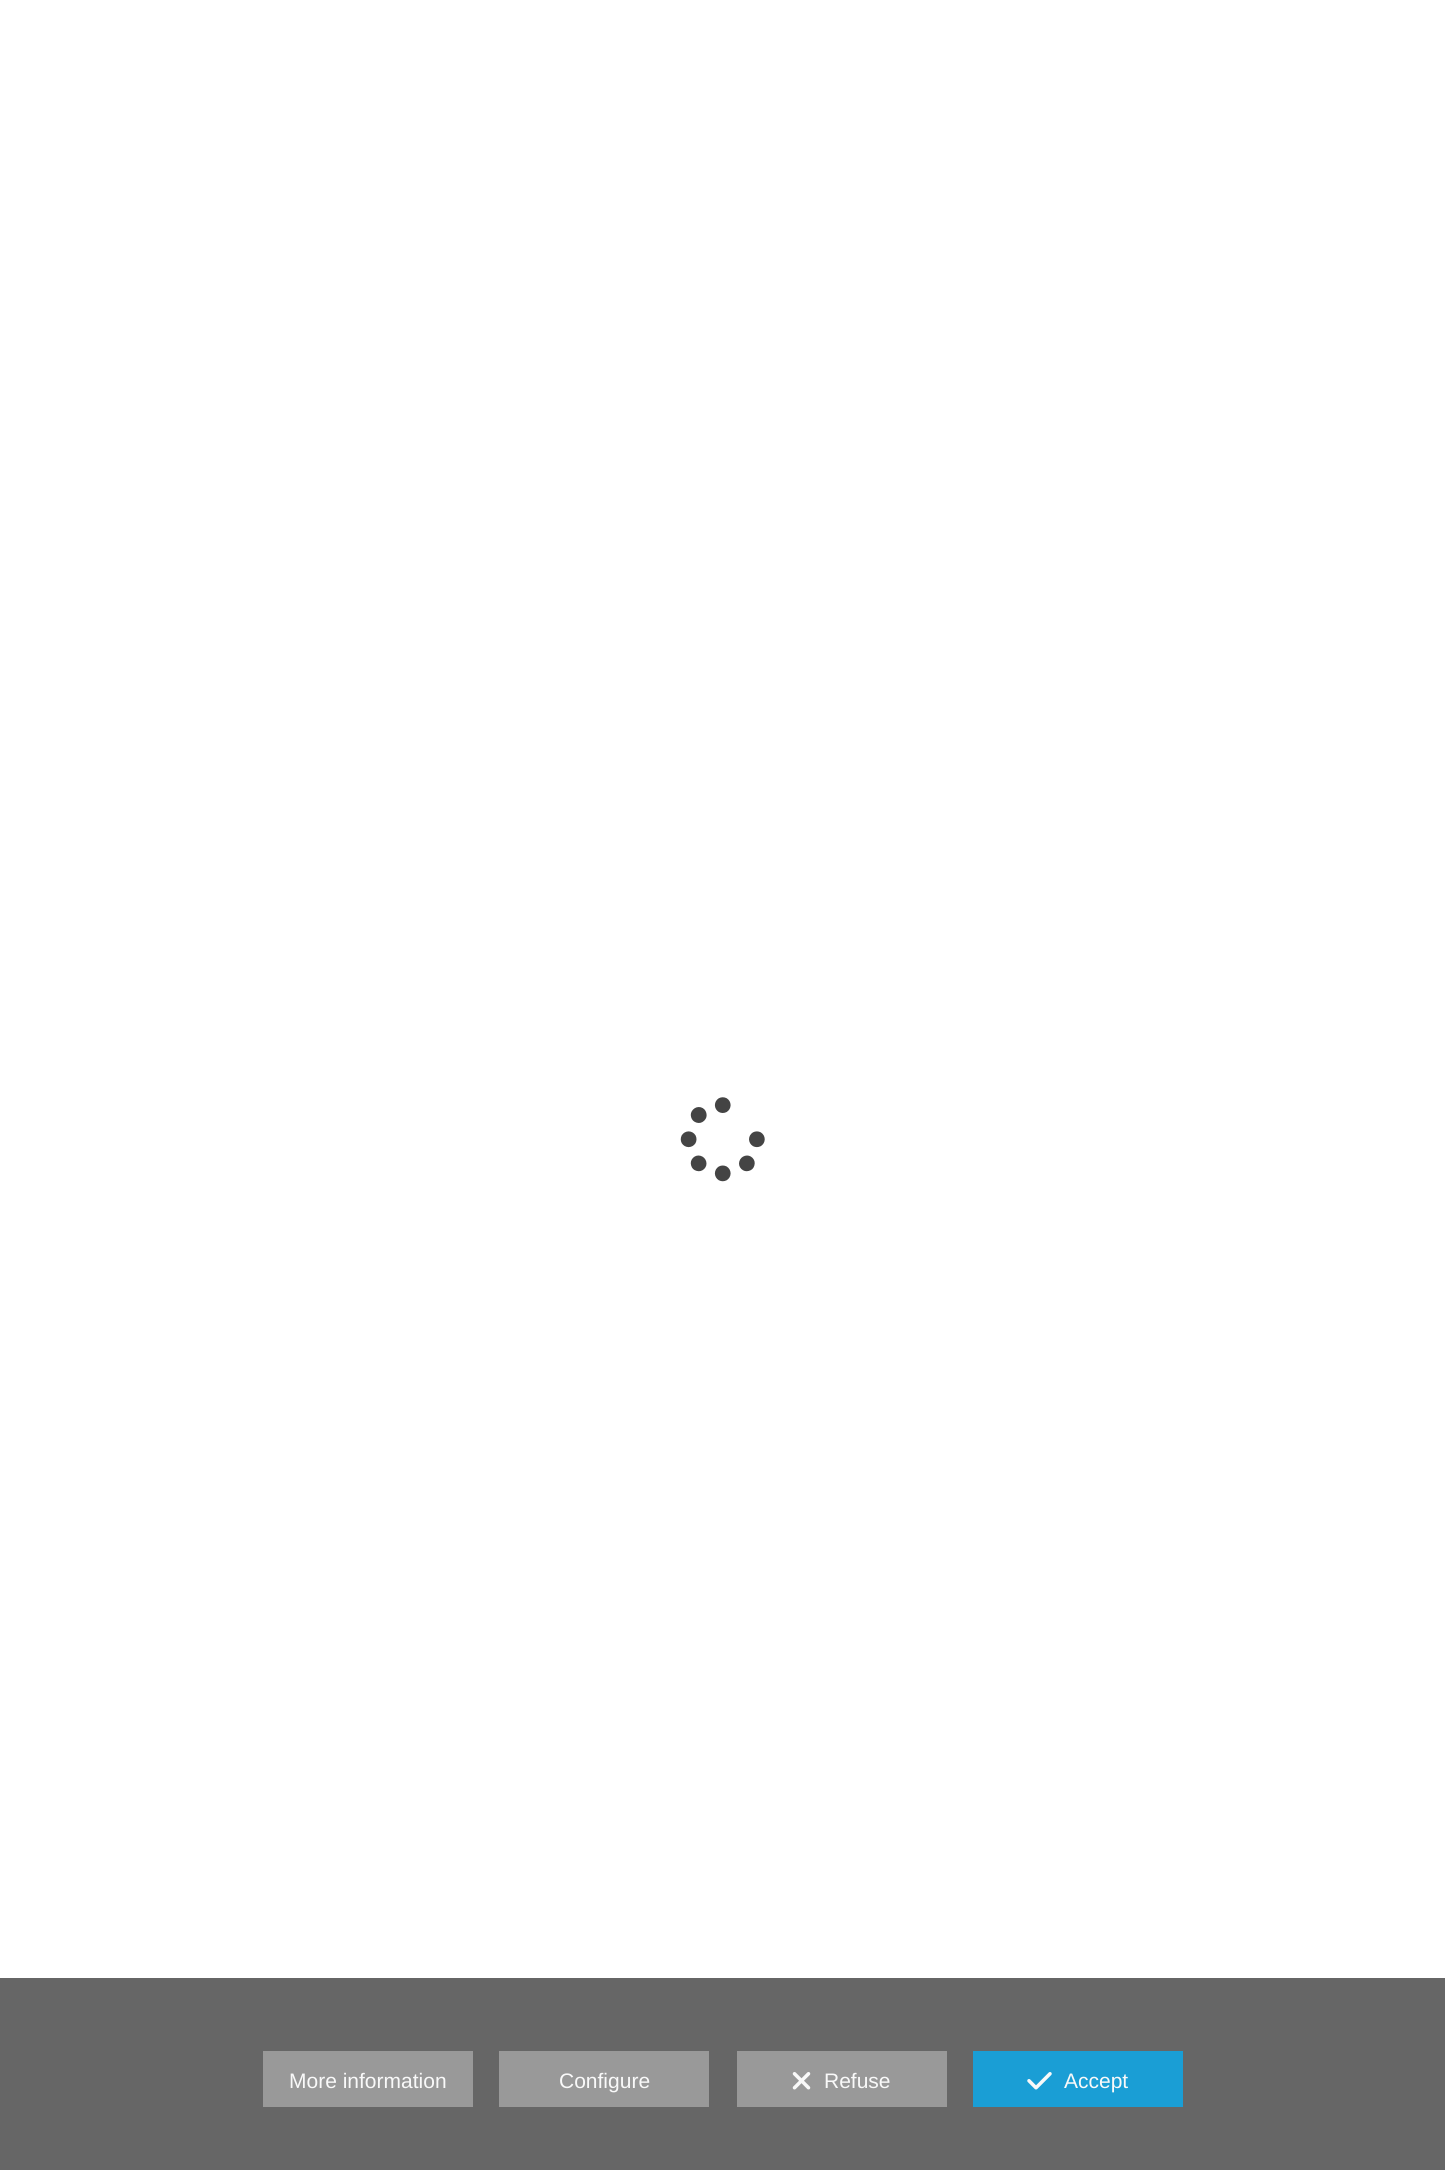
#include <cairo.h>
#include <math.h>
#include <stddef.h>


static void rgb(cairo_t *cr, int r, int g, int b)
{
	cairo_set_source_rgb(cr, r / 255.0, g / 255.0, b / 255.0);
}

static void face(cairo_t *cr, const char *family, double size, int italic, int bold)
{
	cairo_select_font_face(cr, family, italic ? CAIRO_FONT_SLANT_ITALIC : CAIRO_FONT_SLANT_NORMAL,
		bold ? CAIRO_FONT_WEIGHT_BOLD : CAIRO_FONT_WEIGHT_NORMAL);
	cairo_set_font_size(cr, size);
}

static void label(cairo_t *cr, double x, double y, const char *s)
{
	cairo_move_to(cr, x, y);
	cairo_show_text(cr, s);
}

static void rect(cairo_t *cr, double x, double y, double w, double h)
{
	cairo_rectangle(cr, x, y, w, h);
	cairo_fill(cr);
}

static void image(cairo_t *cr, const char *path, double x, double y, double w, double h)
{
	cairo_surface_t *image = cairo_image_surface_create_from_png(path);
	cairo_save(cr);
	cairo_set_source_surface(cr, image, x, y);
	cairo_rectangle(cr, x, y, w, h);
	cairo_fill(cr);
	cairo_restore(cr);
	cairo_surface_destroy(image);
}

static void draw(cairo_t *cr) {
	rgb(cr, 255, 255, 255);
	cairo_paint(cr);
	image(cr, "image0.png", 680, 1097, 85, 85);
	rgb(cr, 102, 102, 102);
	rect(cr, 0, 1978, 1445, 192);
	rgb(cr, 153, 153, 153);
	rect(cr, 263, 2051, 210, 56);
	face(cr, "Liberation Sans", 21, 0, 0);
	rgb(cr, 249, 249, 249);
	label(cr, 289, 2088, "More information");
	rgb(cr, 153, 153, 153);
	rect(cr, 499, 2051, 210, 56);
	rgb(cr, 249, 249, 249);
	label(cr, 559, 2088, "Configure");
	rgb(cr, 153, 153, 153);
	rect(cr, 737, 2051, 210, 56);
	image(cr, "image1.png", 792, 2072, 19, 18);
	rgb(cr, 249, 249, 249);
	label(cr, 824, 2088, "Refuse");
	rgb(cr, 26, 158, 213);
	rect(cr, 973, 2051, 210, 56);
	image(cr, "image2.png", 1027, 2072, 25, 18);
	rgb(cr, 249, 249, 249);
	label(cr, 1064, 2088, "Accept");
}

int main(void) {
	cairo_surface_t *surface = cairo_image_surface_create(CAIRO_FORMAT_RGB24, 1445, 2170);
	cairo_t *cr = cairo_create(surface);
	cairo_font_options_t *options = cairo_font_options_create();
	cairo_font_options_set_hint_metrics(options, CAIRO_HINT_METRICS_OFF);
	cairo_font_options_set_hint_style(options, CAIRO_HINT_STYLE_NONE);
	cairo_set_font_options(cr, options);
	cairo_set_miter_limit(cr, 4);
	draw(cr);
	cairo_surface_write_to_png(surface, "render.png");
	cairo_font_options_destroy(options);
	cairo_destroy(cr);
	cairo_surface_destroy(surface);
	return 0;
}
